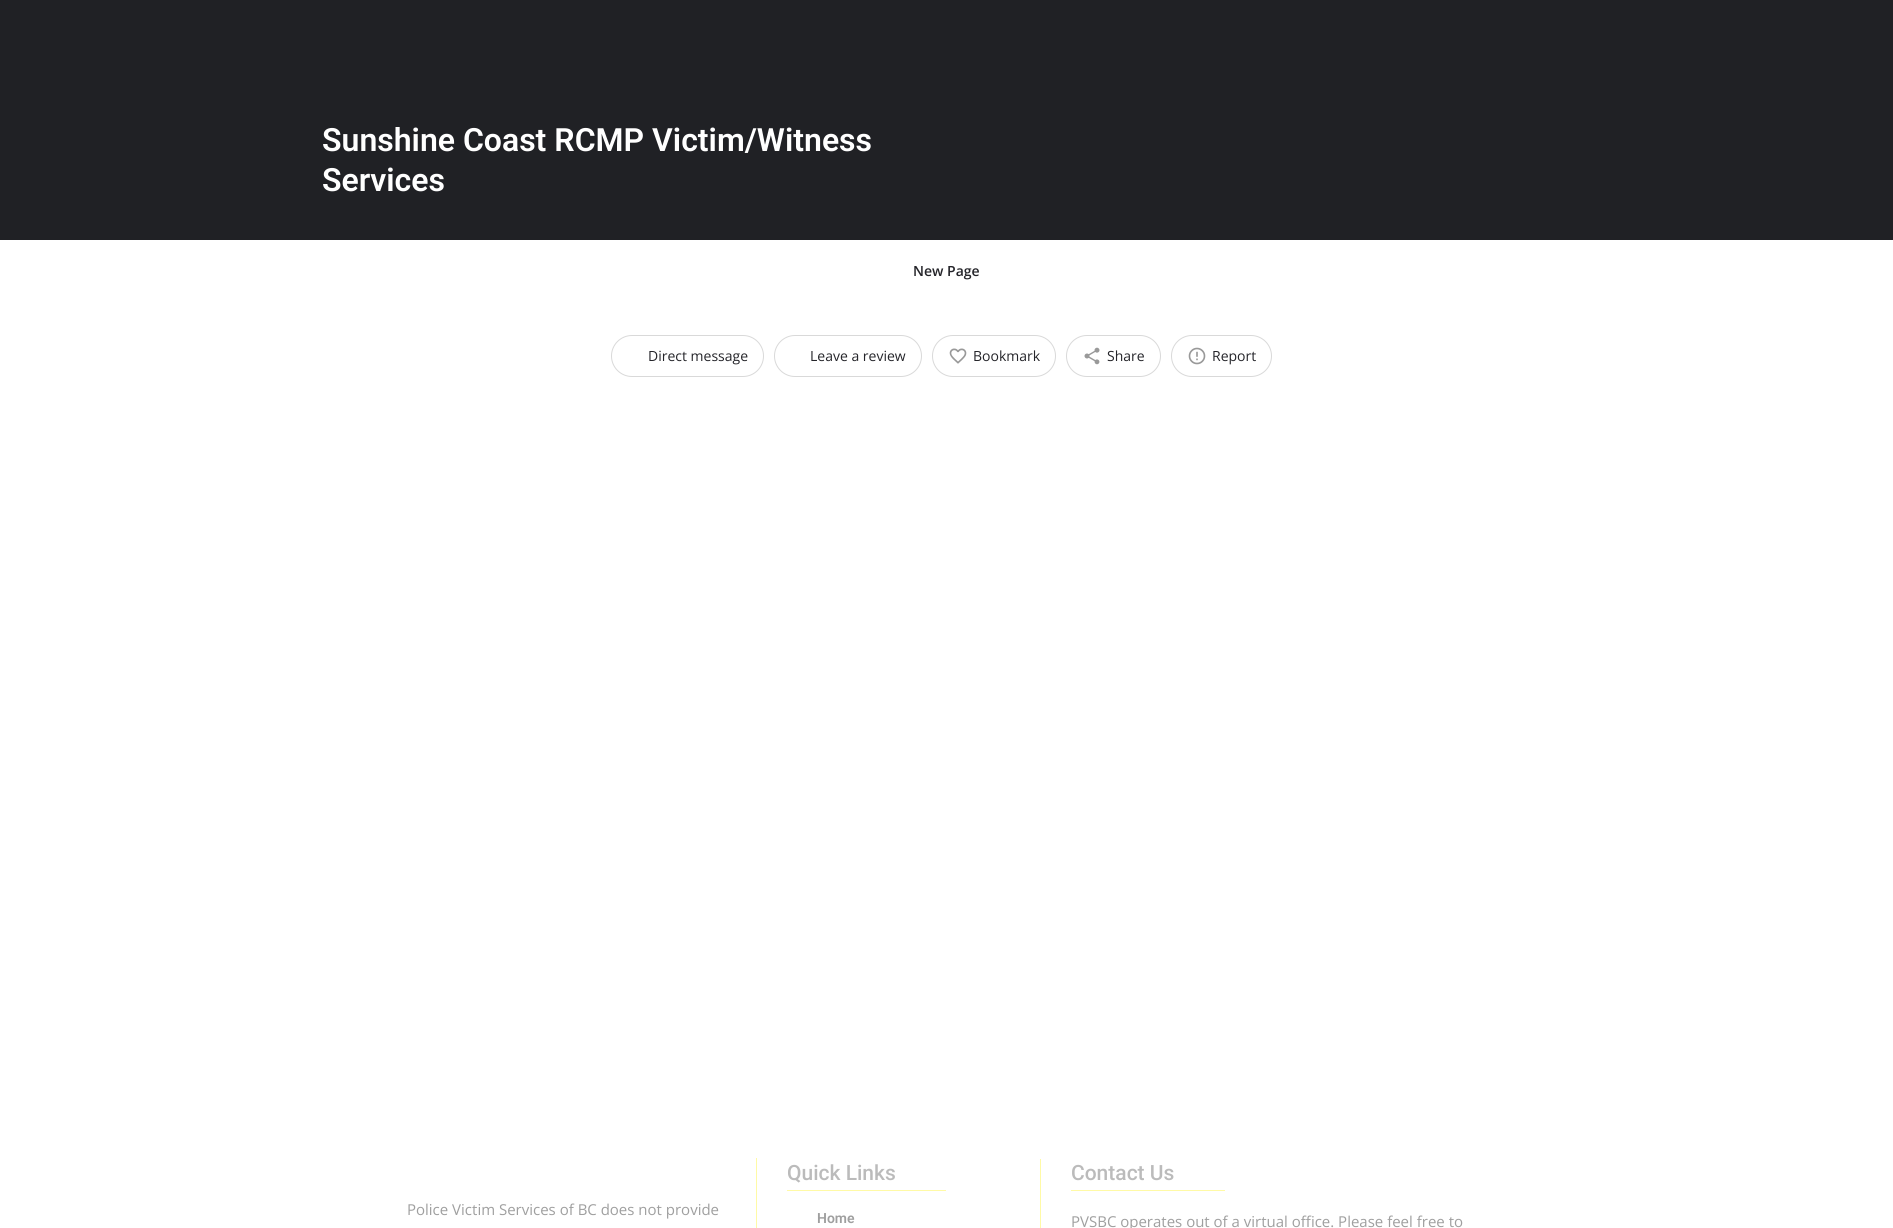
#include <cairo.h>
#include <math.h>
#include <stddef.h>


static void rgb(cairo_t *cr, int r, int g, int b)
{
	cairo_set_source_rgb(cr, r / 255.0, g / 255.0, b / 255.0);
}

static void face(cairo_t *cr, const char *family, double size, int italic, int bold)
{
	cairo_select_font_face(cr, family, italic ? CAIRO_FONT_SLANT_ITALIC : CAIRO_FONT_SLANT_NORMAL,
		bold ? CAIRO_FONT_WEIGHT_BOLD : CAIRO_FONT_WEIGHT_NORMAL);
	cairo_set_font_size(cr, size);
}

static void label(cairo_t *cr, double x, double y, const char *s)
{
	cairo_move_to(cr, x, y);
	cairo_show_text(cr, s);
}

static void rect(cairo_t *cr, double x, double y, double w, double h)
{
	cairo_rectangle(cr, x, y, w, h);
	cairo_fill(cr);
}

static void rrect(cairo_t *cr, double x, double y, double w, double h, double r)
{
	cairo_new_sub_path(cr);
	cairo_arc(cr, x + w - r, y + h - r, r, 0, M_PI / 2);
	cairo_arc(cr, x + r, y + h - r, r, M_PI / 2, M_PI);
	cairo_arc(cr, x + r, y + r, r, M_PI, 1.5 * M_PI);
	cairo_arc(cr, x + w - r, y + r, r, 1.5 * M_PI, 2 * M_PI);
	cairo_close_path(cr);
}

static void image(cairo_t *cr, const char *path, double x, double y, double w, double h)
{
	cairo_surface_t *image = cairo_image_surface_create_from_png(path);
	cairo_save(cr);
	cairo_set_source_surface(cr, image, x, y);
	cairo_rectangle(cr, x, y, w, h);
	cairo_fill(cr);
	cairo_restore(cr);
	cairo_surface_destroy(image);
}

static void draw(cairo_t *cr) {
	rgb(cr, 255, 255, 255);
	cairo_paint(cr);
	rgb(cr, 32, 33, 37);
	rect(cr, 0, 0, 1893, 240);
	face(cr, "Roboto SemiBold", 32, 0, 0);
	rgb(cr, 255, 255, 255);
	label(cr, 322, 151, "Sunshine Coast RCMP Victim/Witness");
	label(cr, 322, 191, "Services");
	face(cr, "Open Sans SemiBold", 14, 0, 0);
	rgb(cr, 36, 36, 41);
	label(cr, 913, 276, "New Page");
	rrect(cr, 611.5, 335.5, 152, 41, 20.5);
	rgb(cr, 217, 217, 217);
	cairo_set_line_width(cr, 1);
	cairo_stroke(cr);
	face(cr, "Open Sans", 14, 0, 0);
	rgb(cr, 36, 36, 41);
	label(cr, 648, 361, "Direct message");
	rrect(cr, 774.5, 335.5, 147, 41, 20.5);
	rgb(cr, 217, 217, 217);
	cairo_stroke(cr);
	rgb(cr, 36, 36, 41);
	label(cr, 810, 361, "Leave a review");
	rrect(cr, 932.5, 335.5, 123, 41, 20.5);
	rgb(cr, 217, 217, 217);
	cairo_stroke(cr);
	image(cr, "image0.png", 949, 348, 18, 16);
	rgb(cr, 36, 36, 41);
	label(cr, 973, 361, "Bookmark");
	rrect(cr, 1066.5, 335.5, 94, 41, 20.5);
	rgb(cr, 217, 217, 217);
	cairo_stroke(cr);
	image(cr, "image1.png", 1084, 347, 16, 18);
	rgb(cr, 36, 36, 41);
	label(cr, 1107, 361, "Share");
	rrect(cr, 1171.5, 335.5, 100, 41, 20.5);
	rgb(cr, 217, 217, 217);
	cairo_stroke(cr);
	image(cr, "image2.png", 1188, 347, 18, 18);
	rgb(cr, 36, 36, 41);
	label(cr, 1212, 361, "Report");
	face(cr, "Open Sans", 15, 0, 0);
	rgb(cr, 159, 159, 159);
	label(cr, 407, 1215, "Police Victim Services of BC does not provide");
	rgb(cr, 255, 250, 166);
	rect(cr, 1040, 1159, 1, 69);
	rect(cr, 756, 1158, 1, 70);
	rect(cr, 787, 1190, 159, 1);
	face(cr, "Roboto Medium", 21, 0, 0);
	rgb(cr, 187, 187, 187);
	label(cr, 787, 1180, "Quick Links");
	face(cr, "Roboto SemiBold", 14, 0, 0);
	rgb(cr, 159, 159, 159);
	label(cr, 817, 1223, "Home");
	rgb(cr, 255, 250, 166);
	rect(cr, 1071, 1190, 154, 1);
	face(cr, "Roboto Medium", 21, 0, 0);
	rgb(cr, 187, 187, 187);
	label(cr, 1071, 1180, "Contact Us");
	face(cr, "Open Sans", 15, 0, 0);
	rgb(cr, 159, 159, 159);
	label(cr, 1071, 1227, "PVSBC operates out of a virtual office. Please feel free to");
}

int main(void) {
	cairo_surface_t *surface = cairo_image_surface_create(CAIRO_FORMAT_RGB24, 1893, 1228);
	cairo_t *cr = cairo_create(surface);
	cairo_font_options_t *options = cairo_font_options_create();
	cairo_font_options_set_hint_metrics(options, CAIRO_HINT_METRICS_OFF);
	cairo_font_options_set_hint_style(options, CAIRO_HINT_STYLE_NONE);
	cairo_set_font_options(cr, options);
	cairo_set_miter_limit(cr, 4);
	draw(cr);
	cairo_surface_write_to_png(surface, "render.png");
	cairo_font_options_destroy(options);
	cairo_destroy(cr);
	cairo_surface_destroy(surface);
	return 0;
}
